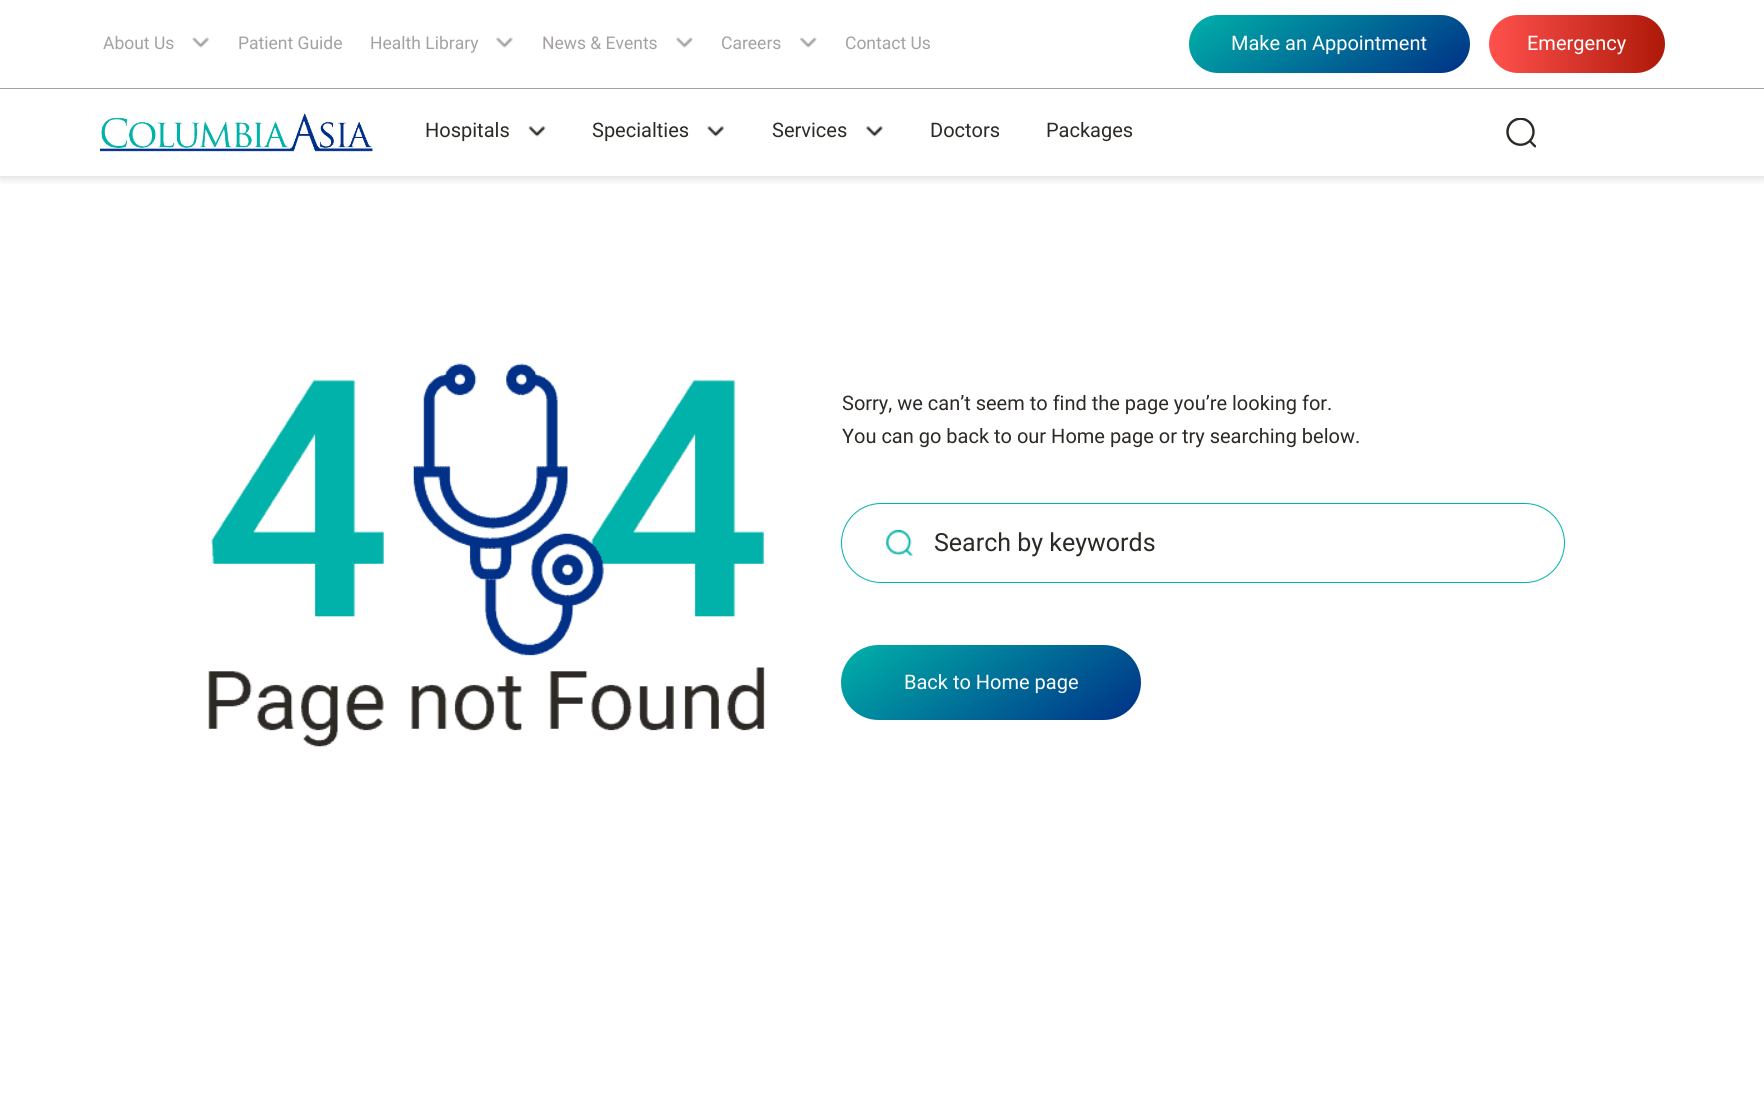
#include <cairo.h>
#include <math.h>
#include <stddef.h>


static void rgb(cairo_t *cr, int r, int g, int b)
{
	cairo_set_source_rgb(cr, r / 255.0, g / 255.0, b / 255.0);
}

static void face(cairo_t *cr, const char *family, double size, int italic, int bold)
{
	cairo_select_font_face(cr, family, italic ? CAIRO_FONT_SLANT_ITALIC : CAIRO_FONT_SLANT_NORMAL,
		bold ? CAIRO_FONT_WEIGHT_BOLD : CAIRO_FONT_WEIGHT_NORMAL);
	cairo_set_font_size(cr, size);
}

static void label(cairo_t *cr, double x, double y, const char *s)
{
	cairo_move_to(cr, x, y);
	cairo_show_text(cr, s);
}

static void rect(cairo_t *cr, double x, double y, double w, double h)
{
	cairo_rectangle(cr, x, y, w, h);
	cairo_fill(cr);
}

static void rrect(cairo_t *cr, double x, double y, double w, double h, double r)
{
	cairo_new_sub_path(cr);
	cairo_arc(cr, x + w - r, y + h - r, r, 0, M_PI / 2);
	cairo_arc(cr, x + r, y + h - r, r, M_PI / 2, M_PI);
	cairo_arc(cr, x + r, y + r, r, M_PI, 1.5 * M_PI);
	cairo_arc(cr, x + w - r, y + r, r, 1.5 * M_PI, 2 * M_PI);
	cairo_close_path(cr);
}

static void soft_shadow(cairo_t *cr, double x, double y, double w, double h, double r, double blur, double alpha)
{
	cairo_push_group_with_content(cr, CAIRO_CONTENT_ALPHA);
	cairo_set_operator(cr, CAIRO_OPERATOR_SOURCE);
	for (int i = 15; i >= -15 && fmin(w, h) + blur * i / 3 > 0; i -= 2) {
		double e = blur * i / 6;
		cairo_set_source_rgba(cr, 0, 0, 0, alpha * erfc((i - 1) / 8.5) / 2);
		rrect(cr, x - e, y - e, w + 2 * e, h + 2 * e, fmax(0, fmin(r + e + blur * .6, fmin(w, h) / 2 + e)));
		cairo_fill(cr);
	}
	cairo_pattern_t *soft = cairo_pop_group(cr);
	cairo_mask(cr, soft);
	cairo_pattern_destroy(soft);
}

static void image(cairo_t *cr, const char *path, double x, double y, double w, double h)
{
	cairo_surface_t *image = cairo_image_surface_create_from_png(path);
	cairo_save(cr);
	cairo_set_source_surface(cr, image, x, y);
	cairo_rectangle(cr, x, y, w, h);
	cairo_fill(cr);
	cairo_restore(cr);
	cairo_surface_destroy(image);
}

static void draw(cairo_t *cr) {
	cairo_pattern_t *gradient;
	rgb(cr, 255, 255, 255);
	cairo_paint(cr);
	cairo_save(cr);
	cairo_rectangle(cr, 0, 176, 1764, 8);
	cairo_clip(cr);
	rgb(cr, 0, 0, 0);
	soft_shadow(cr, 0, 0, 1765, 176, 0, 6, 0.2);
	cairo_restore(cr);
	face(cr, "Roboto", 17.5, 0, 0);
	rgb(cr, 165, 161, 161);
	label(cr, 103, 49, "About Us");
	image(cr, "image0.png", 192, 37, 17, 11);
	label(cr, 238, 49, "Patient Guide");
	label(cr, 370, 49, "Health Library");
	image(cr, "image1.png", 496, 37, 17, 11);
	label(cr, 542, 49, "News & Events");
	image(cr, "image1.png", 676, 37, 17, 11);
	label(cr, 721, 49, "Careers");
	image(cr, "image2.png", 800, 37, 17, 11);
	label(cr, 845, 49, "Contact Us");
	gradient = cairo_pattern_create_linear(1270, -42, 1389, 129);
	cairo_pattern_add_color_stop_rgba(gradient, 0, 0, 0.698, 0.663, 1);
	cairo_pattern_add_color_stop_rgba(gradient, 1, 0, 0.188, 0.529, 1);
	cairo_set_source(cr, gradient);
	cairo_pattern_destroy(gradient);
	rrect(cr, 1189, 15, 281, 58, 29);
	cairo_fill(cr);
	face(cr, "Roboto", 20, 0, 0);
	rgb(cr, 255, 255, 255);
	label(cr, 1231, 50, "Make an Appointment");
	gradient = cairo_pattern_create_linear(1489, 44, 1665, 44);
	cairo_pattern_add_color_stop_rgba(gradient, 0, 1, 0.318, 0.302, 1);
	cairo_pattern_add_color_stop_rgba(gradient, 1, 0.682, 0.098, 0.035, 1);
	cairo_set_source(cr, gradient);
	cairo_pattern_destroy(gradient);
	rrect(cr, 1489, 15, 176, 58, 29);
	cairo_fill(cr);
	rgb(cr, 255, 255, 255);
	label(cr, 1527, 50, "Emergency");
	rgb(cr, 165, 161, 161);
	rect(cr, 0, 88, 1764, 1);
	image(cr, "image3.png", 100, 113, 273, 39);
	rgb(cr, 45, 42, 38);
	label(cr, 425, 137, "Hospitals");
	image(cr, "image4.png", 528, 126, 18, 11);
	label(cr, 592, 137, "Specialties");
	image(cr, "image5.png", 707, 126, 17, 11);
	label(cr, 772, 137, "Services");
	image(cr, "image6.png", 866, 126, 17, 11);
	label(cr, 930, 137, "Doctors");
	label(cr, 1046, 137, "Packages");
	image(cr, "image7.png", 1506, 118, 30, 30);
	image(cr, "image8.png", 208, 363, 557, 384);
	label(cr, 842, 410, "Sorry, we can’t seem to find the page you’re looking for.");
	label(cr, 842, 443, "You can go back to our Home page or try searching below.");
	image(cr, "image9.png", 886, 530, 27, 27);
	rrect(cr, 841.5, 503.5, 723, 79, 39.5);
	rgb(cr, 0, 178, 169);
	cairo_set_line_width(cr, 1);
	cairo_stroke(cr);
	face(cr, "Roboto", 25, 0, 0);
	rgb(cr, 45, 42, 38);
	label(cr, 934, 551, "Search by keywords");
	gradient = cairo_pattern_create_linear(924, 587, 1058, 778);
	cairo_pattern_add_color_stop_rgba(gradient, 0, 0, 0.698, 0.663, 1);
	cairo_pattern_add_color_stop_rgba(gradient, 1, 0, 0.188, 0.529, 1);
	cairo_set_source(cr, gradient);
	cairo_pattern_destroy(gradient);
	rrect(cr, 841, 645, 300, 75, 37.5);
	cairo_fill(cr);
	face(cr, "Roboto", 20, 0, 0);
	rgb(cr, 255, 255, 255);
	label(cr, 904, 689, "Back to Home page");
}

int main(void) {
	cairo_surface_t *surface = cairo_image_surface_create(CAIRO_FORMAT_RGB24, 1764, 1114);
	cairo_t *cr = cairo_create(surface);
	cairo_font_options_t *options = cairo_font_options_create();
	cairo_font_options_set_hint_metrics(options, CAIRO_HINT_METRICS_OFF);
	cairo_font_options_set_hint_style(options, CAIRO_HINT_STYLE_NONE);
	cairo_set_font_options(cr, options);
	cairo_set_miter_limit(cr, 4);
	draw(cr);
	cairo_surface_write_to_png(surface, "render.png");
	cairo_font_options_destroy(options);
	cairo_destroy(cr);
	cairo_surface_destroy(surface);
	return 0;
}
